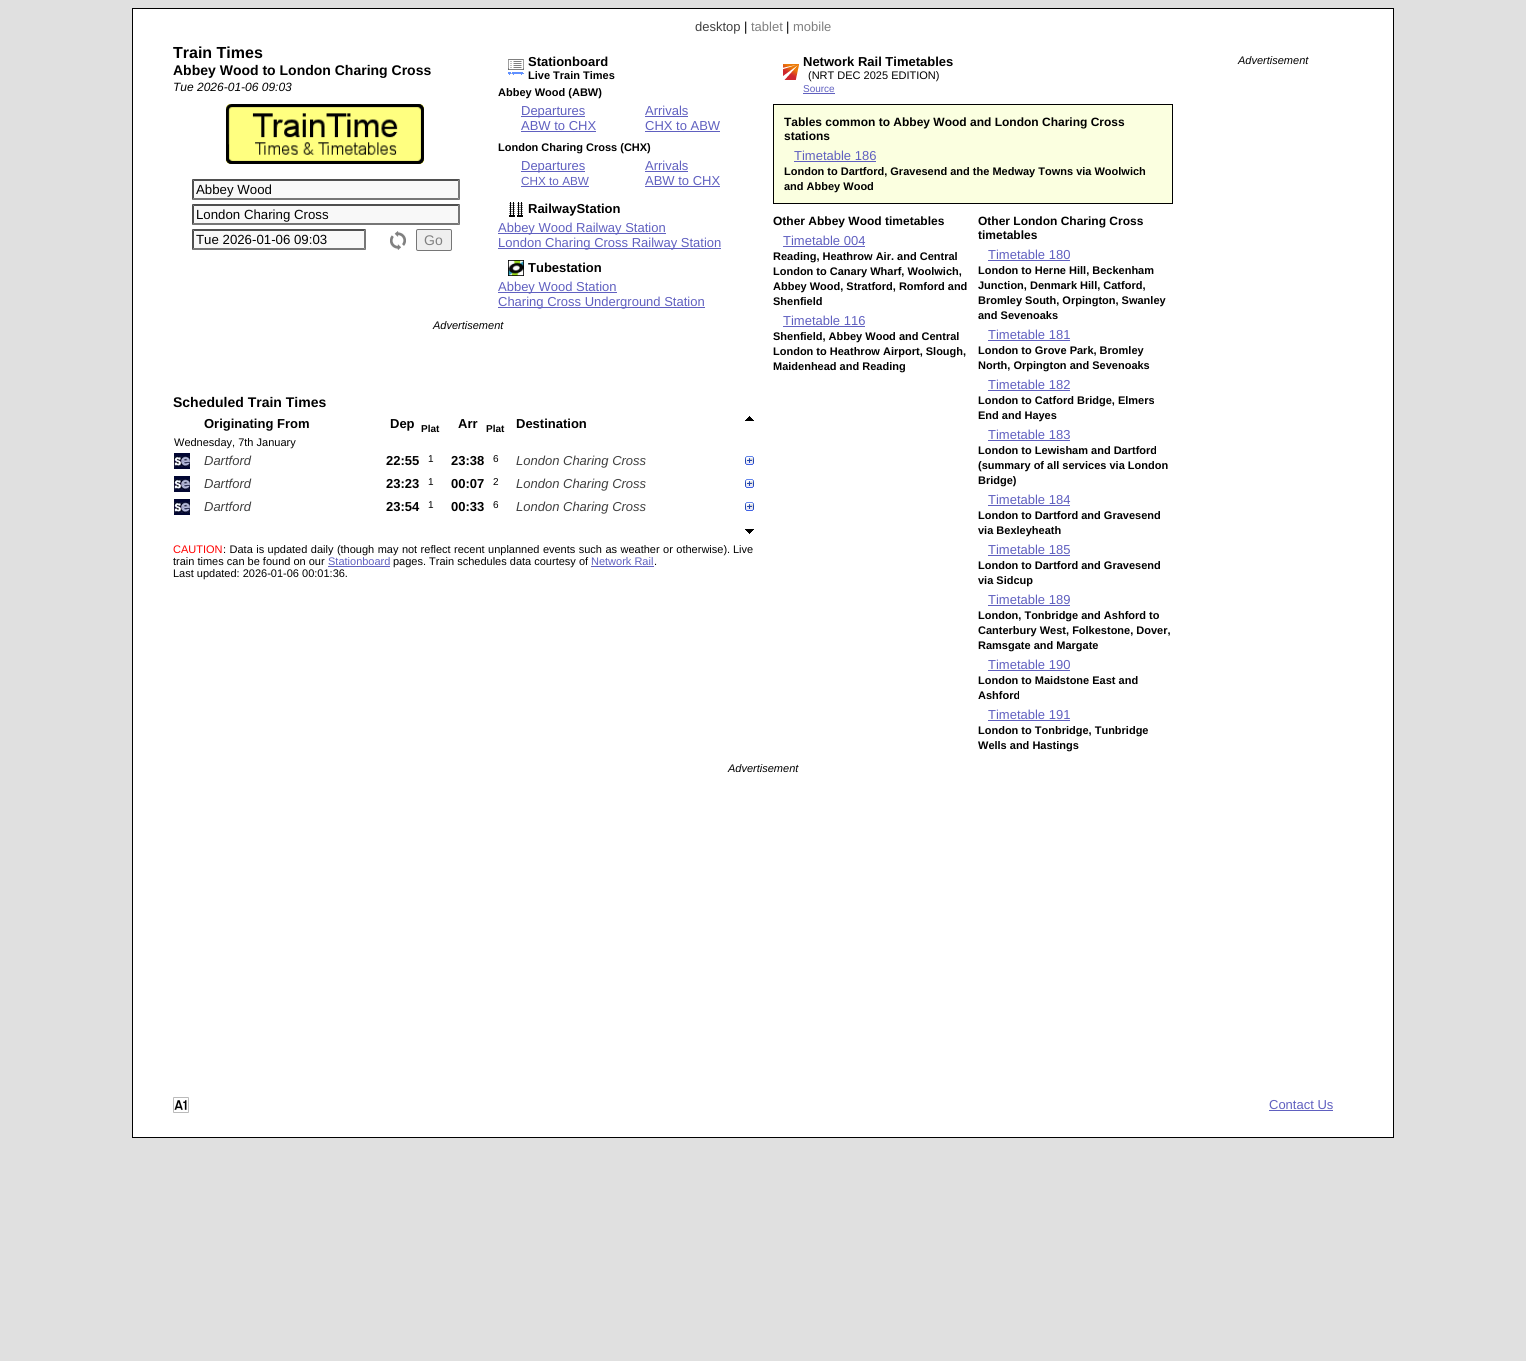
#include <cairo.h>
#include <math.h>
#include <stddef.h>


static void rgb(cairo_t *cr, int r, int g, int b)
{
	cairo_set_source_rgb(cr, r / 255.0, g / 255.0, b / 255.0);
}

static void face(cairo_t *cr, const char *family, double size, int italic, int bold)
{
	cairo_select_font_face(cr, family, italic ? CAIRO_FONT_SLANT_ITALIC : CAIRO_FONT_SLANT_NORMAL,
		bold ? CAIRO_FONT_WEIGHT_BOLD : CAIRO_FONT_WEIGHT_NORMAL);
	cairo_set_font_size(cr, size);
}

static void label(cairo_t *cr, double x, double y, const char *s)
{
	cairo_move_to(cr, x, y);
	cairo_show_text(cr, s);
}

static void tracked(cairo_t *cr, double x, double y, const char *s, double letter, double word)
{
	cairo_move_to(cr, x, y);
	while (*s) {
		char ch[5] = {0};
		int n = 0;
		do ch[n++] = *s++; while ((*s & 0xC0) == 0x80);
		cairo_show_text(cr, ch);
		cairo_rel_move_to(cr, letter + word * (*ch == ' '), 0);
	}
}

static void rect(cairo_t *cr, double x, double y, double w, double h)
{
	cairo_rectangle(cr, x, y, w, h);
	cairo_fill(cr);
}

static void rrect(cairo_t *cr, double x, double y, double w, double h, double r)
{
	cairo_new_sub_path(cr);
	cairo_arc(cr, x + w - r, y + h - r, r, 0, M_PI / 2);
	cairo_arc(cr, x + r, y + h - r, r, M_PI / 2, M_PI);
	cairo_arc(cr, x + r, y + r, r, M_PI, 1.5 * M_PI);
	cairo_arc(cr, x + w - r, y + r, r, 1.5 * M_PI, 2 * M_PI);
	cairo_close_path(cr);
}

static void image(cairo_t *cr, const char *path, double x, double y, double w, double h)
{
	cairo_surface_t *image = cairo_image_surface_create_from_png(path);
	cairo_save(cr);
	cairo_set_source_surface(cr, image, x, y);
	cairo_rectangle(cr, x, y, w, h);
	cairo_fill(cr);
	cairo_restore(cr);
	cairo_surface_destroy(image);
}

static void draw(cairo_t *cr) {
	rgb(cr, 224, 224, 224);
	cairo_paint(cr);
	rgb(cr, 255, 255, 255);
	cairo_rectangle(cr, 132.5, 8.5, 1261, 1129);
	cairo_fill_preserve(cr);
	rgb(cr, 0, 0, 0);
	cairo_set_line_width(cr, 1);
	cairo_stroke(cr);
	face(cr, "Liberation Sans", 13, 0, 0);
	rgb(cr, 64, 64, 64);
	label(cr, 695, 31, "desktop");
	rgb(cr, 0, 0, 0);
	label(cr, 744, 31, "|");
	rgb(cr, 128, 128, 128);
	label(cr, 751, 31, "tablet");
	rgb(cr, 0, 0, 0);
	label(cr, 786, 31, "|");
	rgb(cr, 128, 128, 128);
	label(cr, 793, 31, "mobile");
	face(cr, "Liberation Sans", 16, 0, 1);
	rgb(cr, 0, 0, 0);
	label(cr, 173, 58, "Train Times");
	face(cr, "Liberation Sans", 14, 0, 1);
	label(cr, 173, 75, "Abbey Wood to London Charing Cross");
	face(cr, "Liberation Sans", 12, 1, 0);
	label(cr, 173, 91, "Tue 2026-01-06 09:03");
	image(cr, "image0.png", 226, 104, 198, 60);
	rgb(cr, 248, 248, 248);
	rect(cr, 192, 179, 268, 21);
	rgb(cr, 79, 79, 79);
	cairo_new_path(cr);
	cairo_move_to(cr, 192, 179);
	cairo_line_to(cr, 460, 179);
	cairo_line_to(cr, 458, 181);
	cairo_line_to(cr, 194, 181);
	cairo_close_path(cr);
	cairo_fill(cr);
	rgb(cr, 118, 118, 118);
	cairo_new_path(cr);
	cairo_move_to(cr, 460, 179);
	cairo_line_to(cr, 460, 200);
	cairo_line_to(cr, 458, 198);
	cairo_line_to(cr, 458, 181);
	cairo_close_path(cr);
	cairo_fill(cr);
	cairo_new_path(cr);
	cairo_move_to(cr, 460, 200);
	cairo_line_to(cr, 192, 200);
	cairo_line_to(cr, 194, 198);
	cairo_line_to(cr, 458, 198);
	cairo_close_path(cr);
	cairo_fill(cr);
	rgb(cr, 79, 79, 79);
	cairo_new_path(cr);
	cairo_move_to(cr, 192, 200);
	cairo_line_to(cr, 192, 179);
	cairo_line_to(cr, 194, 181);
	cairo_line_to(cr, 194, 198);
	cairo_close_path(cr);
	cairo_fill(cr);
	face(cr, "Liberation Sans", 13.25, 0, 0);
	rgb(cr, 0, 0, 0);
	label(cr, 196, 194, "Abbey Wood");
	rgb(cr, 248, 248, 248);
	rect(cr, 192, 204, 268, 21);
	rgb(cr, 79, 79, 79);
	cairo_new_path(cr);
	cairo_move_to(cr, 192, 204);
	cairo_line_to(cr, 460, 204);
	cairo_line_to(cr, 458, 206);
	cairo_line_to(cr, 194, 206);
	cairo_close_path(cr);
	cairo_fill(cr);
	rgb(cr, 118, 118, 118);
	cairo_new_path(cr);
	cairo_move_to(cr, 460, 204);
	cairo_line_to(cr, 460, 225);
	cairo_line_to(cr, 458, 223);
	cairo_line_to(cr, 458, 206);
	cairo_close_path(cr);
	cairo_fill(cr);
	cairo_new_path(cr);
	cairo_move_to(cr, 460, 225);
	cairo_line_to(cr, 192, 225);
	cairo_line_to(cr, 194, 223);
	cairo_line_to(cr, 458, 223);
	cairo_close_path(cr);
	cairo_fill(cr);
	rgb(cr, 79, 79, 79);
	cairo_new_path(cr);
	cairo_move_to(cr, 192, 225);
	cairo_line_to(cr, 192, 204);
	cairo_line_to(cr, 194, 206);
	cairo_line_to(cr, 194, 223);
	cairo_close_path(cr);
	cairo_fill(cr);
	rgb(cr, 0, 0, 0);
	label(cr, 196, 219, "London Charing Cross");
	rgb(cr, 248, 248, 248);
	rect(cr, 192, 229, 174, 21);
	rgb(cr, 79, 79, 79);
	cairo_new_path(cr);
	cairo_move_to(cr, 192, 229);
	cairo_line_to(cr, 366, 229);
	cairo_line_to(cr, 364, 231);
	cairo_line_to(cr, 194, 231);
	cairo_close_path(cr);
	cairo_fill(cr);
	rgb(cr, 118, 118, 118);
	cairo_new_path(cr);
	cairo_move_to(cr, 366, 229);
	cairo_line_to(cr, 366, 250);
	cairo_line_to(cr, 364, 248);
	cairo_line_to(cr, 364, 231);
	cairo_close_path(cr);
	cairo_fill(cr);
	cairo_new_path(cr);
	cairo_move_to(cr, 366, 250);
	cairo_line_to(cr, 192, 250);
	cairo_line_to(cr, 194, 248);
	cairo_line_to(cr, 364, 248);
	cairo_close_path(cr);
	cairo_fill(cr);
	rgb(cr, 79, 79, 79);
	cairo_new_path(cr);
	cairo_move_to(cr, 192, 250);
	cairo_line_to(cr, 192, 229);
	cairo_line_to(cr, 194, 231);
	cairo_line_to(cr, 194, 248);
	cairo_close_path(cr);
	cairo_fill(cr);
	rgb(cr, 0, 0, 0);
	label(cr, 196, 244, "Tue 2026-01-06 09:03");
	image(cr, "image1.png", 390, 231, 16, 19);
	rgb(cr, 239, 239, 239);
	rrect(cr, 416.5, 229.5, 35, 21, 1.5);
	cairo_fill_preserve(cr);
	rgb(cr, 118, 118, 118);
	cairo_stroke(cr);
	face(cr, "Liberation Sans", 14, 0, 0);
	rgb(cr, 128, 128, 128);
	label(cr, 424, 245, "Go");
	image(cr, "image2.png", 508, 59, 16, 16);
	face(cr, "Liberation Sans", 13, 0, 1);
	rgb(cr, 0, 0, 0);
	label(cr, 528, 66, "Stationboard");
	face(cr, "Liberation Sans", 11, 0, 1);
	label(cr, 528, 79, "Live Train Times");
	label(cr, 498, 96, "Abbey Wood (ABW)");
	rgb(cr, 96, 96, 192);
	rect(cr, 521, 116, 64, 1);
	face(cr, "Liberation Sans", 13, 0, 0);
	label(cr, 521, 115, "Departures");
	label(cr, 521, 130, "ABW to CHX");
	rect(cr, 521, 131, 75, 1);
	label(cr, 645, 115, "Arrivals");
	rect(cr, 645, 116, 43, 1);
	label(cr, 645, 130, "CHX to ABW");
	rect(cr, 645, 131, 75, 1);
	face(cr, "Liberation Sans", 11, 0, 1);
	rgb(cr, 0, 0, 0);
	label(cr, 498, 151, "London Charing Cross (CHX)");
	rgb(cr, 96, 96, 192);
	rect(cr, 521, 171, 64, 1);
	face(cr, "Liberation Sans", 13, 0, 0);
	label(cr, 521, 170, "Departures");
	face(cr, "Liberation Sans", 11.75, 0, 0);
	label(cr, 521, 185, "CHX to ABW");
	rect(cr, 521, 186, 68, 1);
	face(cr, "Liberation Sans", 13, 0, 0);
	label(cr, 645, 170, "Arrivals");
	rect(cr, 645, 171, 43, 1);
	label(cr, 645, 185, "ABW to CHX");
	rect(cr, 645, 186, 75, 1);
	image(cr, "image3.png", 509, 202, 14, 15);
	face(cr, "Liberation Sans", 13, 0, 1);
	rgb(cr, 0, 0, 0);
	label(cr, 528, 213, "RailwayStation");
	rgb(cr, 96, 96, 192);
	rect(cr, 498, 233, 168, 1);
	face(cr, "Liberation Sans", 13, 0, 0);
	label(cr, 498, 232, "Abbey Wood Railway Station");
	rect(cr, 498, 248, 223, 1);
	label(cr, 498, 247, "London Charing Cross Railway Station");
	image(cr, "image4.png", 508, 260, 16, 16);
	face(cr, "Liberation Sans", 13, 0, 1);
	rgb(cr, 0, 0, 0);
	label(cr, 528, 272, "Tubestation");
	rgb(cr, 96, 96, 192);
	rect(cr, 498, 292, 119, 1);
	face(cr, "Liberation Sans", 13, 0, 0);
	label(cr, 498, 291, "Abbey Wood Station");
	rect(cr, 498, 307, 207, 1);
	label(cr, 498, 306, "Charing Cross Underground Station");
	face(cr, "Liberation Sans", 11, 1, 0);
	rgb(cr, 0, 0, 0);
	label(cr, 433, 329, "Advertisement");
	face(cr, "Liberation Sans", 14, 0, 1);
	label(cr, 173, 407, "Scheduled Train Times");
	face(cr, "Liberation Sans", 13, 0, 1);
	label(cr, 204, 428, "Originating From");
	label(cr, 390, 428, "Dep");
	face(cr, "Liberation Sans", 10, 0, 1);
	label(cr, 421, 432, "Plat");
	face(cr, "Liberation Sans", 13, 0, 1);
	label(cr, 458, 428, "Arr");
	face(cr, "Liberation Sans", 10, 0, 1);
	label(cr, 486, 432, "Plat");
	face(cr, "Liberation Sans", 13, 0, 1);
	label(cr, 516, 428, "Destination");
	image(cr, "image5.png", 745, 416, 9, 5);
	face(cr, "Liberation Sans", 11, 0, 0);
	label(cr, 174, 446, "Wednesday, 7th January");
	image(cr, "image6.png", 174, 453, 16, 16);
	face(cr, "Liberation Sans", 13, 1, 0);
	rgb(cr, 64, 64, 64);
	label(cr, 204, 465, "Dartford");
	face(cr, "Liberation Sans", 13, 0, 1);
	rgb(cr, 0, 0, 0);
	label(cr, 386, 465, "22:55");
	face(cr, "Liberation Sans", 10, 0, 0);
	label(cr, 428, 462, "1");
	face(cr, "Liberation Sans", 13, 0, 1);
	label(cr, 451, 465, "23:38");
	face(cr, "Liberation Sans", 10, 0, 0);
	label(cr, 493, 462, "6");
	face(cr, "Liberation Sans", 13, 1, 0);
	rgb(cr, 64, 64, 64);
	label(cr, 516, 465, "London Charing Cross");
	image(cr, "image7.png", 745, 456, 9, 9);
	image(cr, "image6.png", 174, 476, 16, 16);
	label(cr, 204, 488, "Dartford");
	face(cr, "Liberation Sans", 13, 0, 1);
	rgb(cr, 0, 0, 0);
	label(cr, 386, 488, "23:23");
	face(cr, "Liberation Sans", 10, 0, 0);
	label(cr, 428, 485, "1");
	face(cr, "Liberation Sans", 13, 0, 1);
	label(cr, 451, 488, "00:07");
	face(cr, "Liberation Sans", 10, 0, 0);
	label(cr, 493, 485, "2");
	face(cr, "Liberation Sans", 13, 1, 0);
	rgb(cr, 64, 64, 64);
	label(cr, 516, 488, "London Charing Cross");
	image(cr, "image7.png", 745, 479, 9, 9);
	image(cr, "image6.png", 174, 499, 16, 16);
	label(cr, 204, 511, "Dartford");
	face(cr, "Liberation Sans", 13, 0, 1);
	rgb(cr, 0, 0, 0);
	label(cr, 386, 511, "23:54");
	face(cr, "Liberation Sans", 10, 0, 0);
	label(cr, 428, 508, "1");
	face(cr, "Liberation Sans", 13, 0, 1);
	label(cr, 451, 511, "00:33");
	face(cr, "Liberation Sans", 10, 0, 0);
	label(cr, 493, 508, "6");
	face(cr, "Liberation Sans", 13, 1, 0);
	rgb(cr, 64, 64, 64);
	label(cr, 516, 511, "London Charing Cross");
	image(cr, "image7.png", 745, 502, 9, 9);
	image(cr, "image8.png", 745, 529, 9, 5);
	face(cr, "Liberation Sans", 11, 0, 0);
	rgb(cr, 255, 0, 0);
	label(cr, 173, 553, "CAUTION");
	rgb(cr, 0, 0, 0);
	tracked(cr, 223, 553, ": Data is updated daily (though may not reflect recent unplanned events such as weather or otherwise).", 0, 0.4);
	label(cr, 733, 553, "Live");
	label(cr, 173, 565, "train times can be found on our");
	rgb(cr, 96, 96, 192);
	label(cr, 328, 565, "Stationboard");
	rect(cr, 328, 566, 62, 1);
	rgb(cr, 0, 0, 0);
	label(cr, 393, 565, "pages. Train schedules data courtesy of");
	rgb(cr, 96, 96, 192);
	label(cr, 591, 565, "Network Rail");
	rgb(cr, 0, 0, 0);
	label(cr, 654, 565, ".");
	rgb(cr, 96, 96, 192);
	rect(cr, 591, 566, 63, 1);
	rgb(cr, 0, 0, 0);
	label(cr, 173, 577, "Last updated: 2026-01-06 00:01:36.");
	image(cr, "image9.png", 783, 64, 16, 16);
	face(cr, "Liberation Sans", 13, 0, 1);
	label(cr, 803, 66, "Network Rail Timetables");
	face(cr, "Liberation Sans", 11, 0, 0);
	label(cr, 808, 79, "(NRT DEC 2025 EDITION)");
	face(cr, "Liberation Sans", 10, 0, 0);
	rgb(cr, 96, 96, 192);
	label(cr, 803, 92, "Source");
	rect(cr, 803, 93, 32, 1);
	rgb(cr, 251, 255, 224);
	cairo_rectangle(cr, 773.5, 104.5, 399, 99);
	cairo_fill_preserve(cr);
	rgb(cr, 0, 0, 0);
	cairo_stroke(cr);
	face(cr, "Liberation Sans", 12, 0, 1);
	label(cr, 784, 126, "Tables common to Abbey Wood and London Charing Cross");
	label(cr, 784, 140, "stations");
	face(cr, "Liberation Sans", 13, 0, 0);
	rgb(cr, 96, 96, 192);
	label(cr, 794, 160, "Timetable 186");
	rect(cr, 794, 161, 82, 1);
	face(cr, "Liberation Sans", 11, 0, 1);
	rgb(cr, 0, 0, 0);
	label(cr, 784, 175, "London to Dartford, Gravesend and the Medway Towns via Woolwich");
	label(cr, 784, 190, "and Abbey Wood");
	face(cr, "Liberation Sans", 12, 0, 1);
	label(cr, 773, 225, "Other Abbey Wood timetables");
	face(cr, "Liberation Sans", 13, 0, 0);
	rgb(cr, 96, 96, 192);
	label(cr, 783, 245, "Timetable 004");
	rect(cr, 783, 246, 82, 1);
	face(cr, "Liberation Sans", 11, 0, 1);
	rgb(cr, 0, 0, 0);
	label(cr, 773, 260, "Reading, Heathrow Air. and Central");
	label(cr, 773, 275, "London to Canary Wharf, Woolwich,");
	label(cr, 773, 290, "Abbey Wood, Stratford, Romford and");
	label(cr, 773, 305, "Shenfield");
	face(cr, "Liberation Sans", 13, 0, 0);
	rgb(cr, 96, 96, 192);
	label(cr, 783, 325, "Timetable 116");
	rect(cr, 783, 326, 82, 1);
	face(cr, "Liberation Sans", 11, 0, 1);
	rgb(cr, 0, 0, 0);
	label(cr, 773, 340, "Shenfield, Abbey Wood and Central");
	label(cr, 773, 355, "London to Heathrow Airport, Slough,");
	label(cr, 773, 370, "Maidenhead and Reading");
	face(cr, "Liberation Sans", 12, 0, 1);
	label(cr, 978, 225, "Other London Charing Cross");
	label(cr, 978, 239, "timetables");
	face(cr, "Liberation Sans", 13, 0, 0);
	rgb(cr, 96, 96, 192);
	label(cr, 988, 259, "Timetable 180");
	rect(cr, 988, 260, 82, 1);
	face(cr, "Liberation Sans", 11, 0, 1);
	rgb(cr, 0, 0, 0);
	label(cr, 978, 274, "London to Herne Hill, Beckenham");
	label(cr, 978, 289, "Junction, Denmark Hill, Catford,");
	label(cr, 978, 304, "Bromley South, Orpington, Swanley");
	label(cr, 978, 319, "and Sevenoaks");
	face(cr, "Liberation Sans", 13, 0, 0);
	rgb(cr, 96, 96, 192);
	label(cr, 988, 339, "Timetable 181");
	rect(cr, 988, 340, 82, 1);
	face(cr, "Liberation Sans", 11, 0, 1);
	rgb(cr, 0, 0, 0);
	label(cr, 978, 354, "London to Grove Park, Bromley");
	label(cr, 978, 369, "North, Orpington and Sevenoaks");
	face(cr, "Liberation Sans", 13, 0, 0);
	rgb(cr, 96, 96, 192);
	label(cr, 988, 389, "Timetable 182");
	rect(cr, 988, 390, 82, 1);
	face(cr, "Liberation Sans", 11, 0, 1);
	rgb(cr, 0, 0, 0);
	label(cr, 978, 404, "London to Catford Bridge, Elmers");
	label(cr, 978, 419, "End and Hayes");
	face(cr, "Liberation Sans", 13, 0, 0);
	rgb(cr, 96, 96, 192);
	label(cr, 988, 439, "Timetable 183");
	rect(cr, 988, 440, 82, 1);
	face(cr, "Liberation Sans", 11, 0, 1);
	rgb(cr, 0, 0, 0);
	label(cr, 978, 454, "London to Lewisham and Dartford");
	label(cr, 978, 469, "(summary of all services via London");
	label(cr, 978, 484, "Bridge)");
	face(cr, "Liberation Sans", 13, 0, 0);
	rgb(cr, 96, 96, 192);
	label(cr, 988, 504, "Timetable 184");
	rect(cr, 988, 505, 82, 1);
	face(cr, "Liberation Sans", 11, 0, 1);
	rgb(cr, 0, 0, 0);
	label(cr, 978, 519, "London to Dartford and Gravesend");
	label(cr, 978, 534, "via Bexleyheath");
	face(cr, "Liberation Sans", 13, 0, 0);
	rgb(cr, 96, 96, 192);
	label(cr, 988, 554, "Timetable 185");
	rect(cr, 988, 555, 82, 1);
	face(cr, "Liberation Sans", 11, 0, 1);
	rgb(cr, 0, 0, 0);
	label(cr, 978, 569, "London to Dartford and Gravesend");
	label(cr, 978, 584, "via Sidcup");
	face(cr, "Liberation Sans", 13, 0, 0);
	rgb(cr, 96, 96, 192);
	label(cr, 988, 604, "Timetable 189");
	rect(cr, 988, 605, 82, 1);
	face(cr, "Liberation Sans", 11, 0, 1);
	rgb(cr, 0, 0, 0);
	label(cr, 978, 619, "London, Tonbridge and Ashford to");
	label(cr, 978, 634, "Canterbury West, Folkestone, Dover,");
	label(cr, 978, 649, "Ramsgate and Margate");
	face(cr, "Liberation Sans", 13, 0, 0);
	rgb(cr, 96, 96, 192);
	label(cr, 988, 669, "Timetable 190");
	rect(cr, 988, 670, 82, 1);
	face(cr, "Liberation Sans", 11, 0, 1);
	rgb(cr, 0, 0, 0);
	label(cr, 978, 684, "London to Maidstone East and");
	label(cr, 978, 699, "Ashford");
	face(cr, "Liberation Sans", 13, 0, 0);
	rgb(cr, 96, 96, 192);
	label(cr, 988, 719, "Timetable 191");
	rect(cr, 988, 720, 82, 1);
	face(cr, "Liberation Sans", 11, 0, 1);
	rgb(cr, 0, 0, 0);
	label(cr, 978, 734, "London to Tonbridge, Tunbridge");
	label(cr, 978, 749, "Wells and Hastings");
	face(cr, "Liberation Sans", 11, 1, 0);
	label(cr, 1238, 64, "Advertisement");
	label(cr, 728, 772, "Advertisement");
	image(cr, "image10.png", 173, 1097, 16, 16);
	face(cr, "Liberation Sans", 13, 0, 0);
	rgb(cr, 96, 96, 192);
	label(cr, 1269, 1109, "Contact Us");
	rect(cr, 1269, 1110, 64, 1);
}

int main(void) {
	cairo_surface_t *surface = cairo_image_surface_create(CAIRO_FORMAT_RGB24, 1526, 1361);
	cairo_t *cr = cairo_create(surface);
	cairo_font_options_t *options = cairo_font_options_create();
	cairo_font_options_set_hint_metrics(options, CAIRO_HINT_METRICS_OFF);
	cairo_font_options_set_hint_style(options, CAIRO_HINT_STYLE_NONE);
	cairo_set_font_options(cr, options);
	cairo_set_miter_limit(cr, 4);
	draw(cr);
	cairo_surface_write_to_png(surface, "render.png");
	cairo_font_options_destroy(options);
	cairo_destroy(cr);
	cairo_surface_destroy(surface);
	return 0;
}
